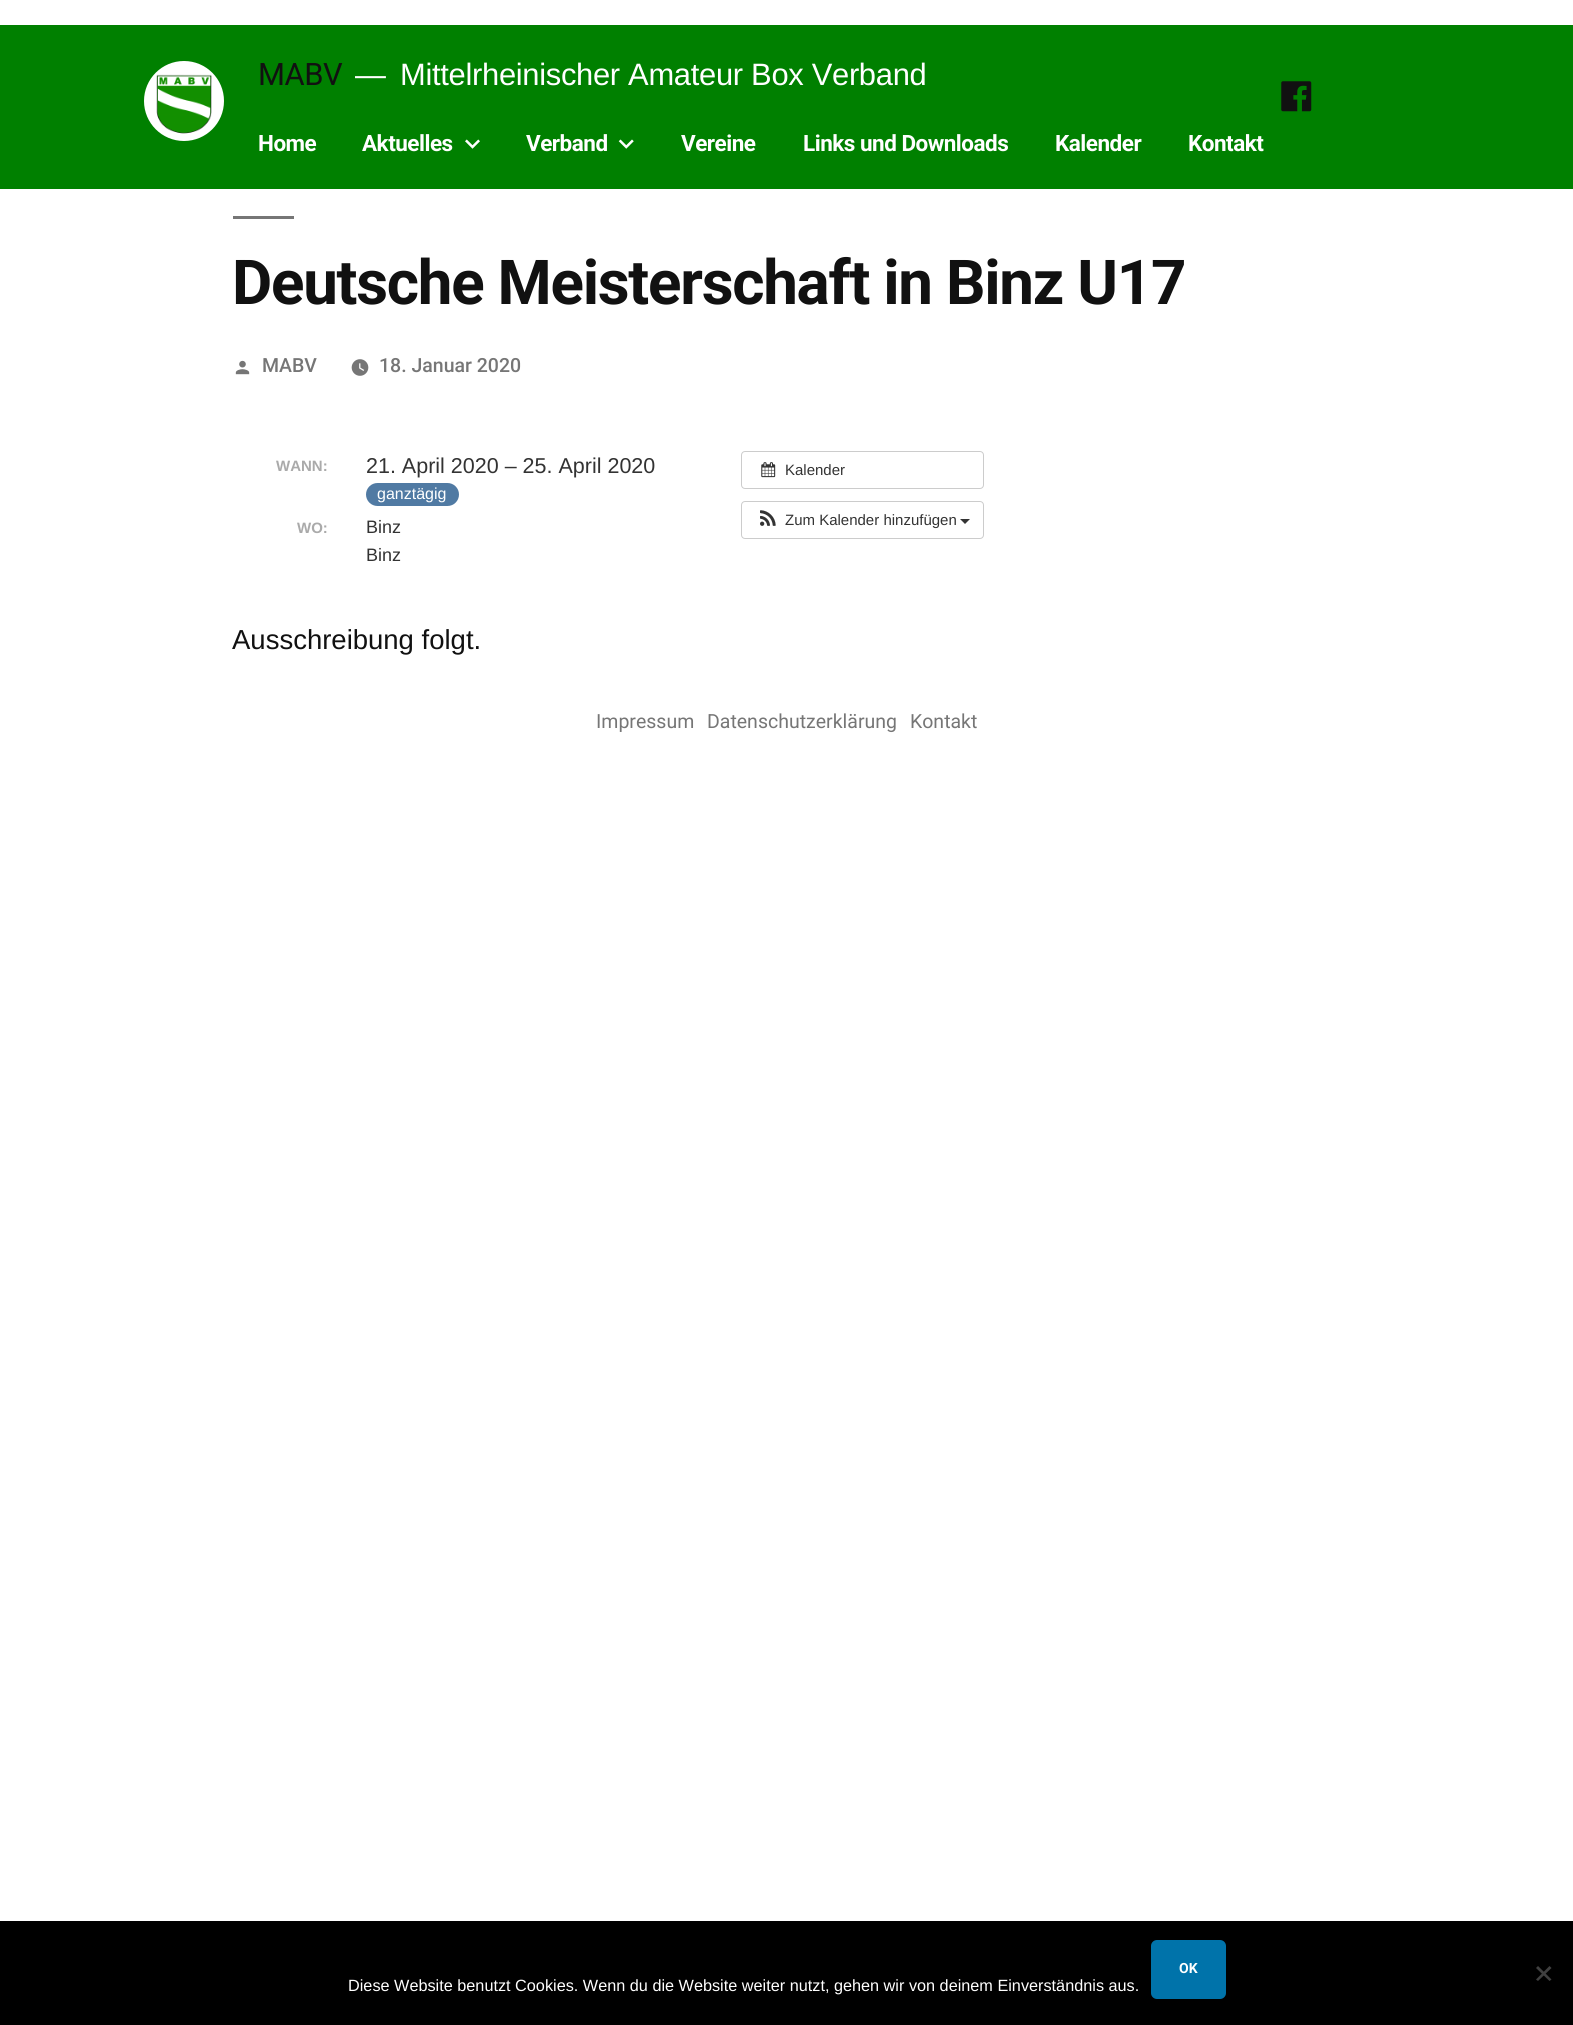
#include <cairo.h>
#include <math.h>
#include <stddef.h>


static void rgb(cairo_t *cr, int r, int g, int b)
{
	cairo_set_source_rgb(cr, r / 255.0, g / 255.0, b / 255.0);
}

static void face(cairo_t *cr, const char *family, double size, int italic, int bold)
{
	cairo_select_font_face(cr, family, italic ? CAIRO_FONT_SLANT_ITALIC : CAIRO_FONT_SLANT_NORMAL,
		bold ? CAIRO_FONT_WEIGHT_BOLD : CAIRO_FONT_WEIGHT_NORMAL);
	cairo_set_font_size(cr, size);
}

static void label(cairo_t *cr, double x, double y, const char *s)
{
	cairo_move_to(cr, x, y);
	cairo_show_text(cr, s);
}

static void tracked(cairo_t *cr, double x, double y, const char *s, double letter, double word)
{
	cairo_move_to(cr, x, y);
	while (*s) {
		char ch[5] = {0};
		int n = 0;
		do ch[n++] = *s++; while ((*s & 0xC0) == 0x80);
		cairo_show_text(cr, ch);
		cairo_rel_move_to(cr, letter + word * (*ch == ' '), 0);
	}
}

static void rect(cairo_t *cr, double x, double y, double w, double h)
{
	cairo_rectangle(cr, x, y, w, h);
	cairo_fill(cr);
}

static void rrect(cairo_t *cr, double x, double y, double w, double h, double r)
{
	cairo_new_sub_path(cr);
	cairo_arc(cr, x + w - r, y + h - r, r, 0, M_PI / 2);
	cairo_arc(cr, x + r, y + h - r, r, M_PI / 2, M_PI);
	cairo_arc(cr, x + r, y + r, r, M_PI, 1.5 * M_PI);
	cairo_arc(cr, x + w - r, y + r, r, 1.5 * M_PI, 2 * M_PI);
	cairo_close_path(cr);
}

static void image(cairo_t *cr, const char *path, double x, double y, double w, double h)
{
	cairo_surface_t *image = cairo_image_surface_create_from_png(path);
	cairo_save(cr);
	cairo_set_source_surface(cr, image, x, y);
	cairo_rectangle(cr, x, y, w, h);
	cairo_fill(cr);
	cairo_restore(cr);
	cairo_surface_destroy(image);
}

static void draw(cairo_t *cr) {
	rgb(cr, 255, 255, 255);
	cairo_paint(cr);
	rgb(cr, 0, 128, 0);
	rect(cr, 0, 25, 1573, 164);
	rgb(cr, 255, 255, 255);
	cairo_arc(cr, 184, 101, 40, 0, 2 * M_PI);
	cairo_fill(cr);
	image(cr, "image0.png", 156, 74, 56, 60);
	face(cr, "Roboto", 30.9, 0, 0);
	rgb(cr, 17, 17, 17);
	tracked(cr, 258, 85, "MABV", -0.5, 0);
	face(cr, "Liberation Sans", 30.9, 0, 0);
	rgb(cr, 255, 255, 255);
	tracked(cr, 355, 85, "—", -0.3, 0);
	tracked(cr, 400, 85, "Mittelrheinischer Amateur Box Verband", -0.3, 0);
	image(cr, "image1.png", 1281, 81, 31, 31);
	face(cr, "Roboto", 22.5, 0, 1);
	tracked(cr, 258, 151, "Home", -0.5, 0);
	tracked(cr, 362, 151, "Aktuelles", -0.5, 0);
	image(cr, "image2.png", 465, 139, 15, 10);
	tracked(cr, 526, 151, "Verband", -0.5, 0);
	image(cr, "image3.png", 618, 139, 16, 10);
	tracked(cr, 681, 151, "Vereine", -0.5, 0);
	tracked(cr, 803, 151, "Links und Downloads", -0.5, 0);
	tracked(cr, 1055, 151, "Kalender", -0.5, 0);
	tracked(cr, 1188, 151, "Kontakt", -0.5, 0);
	rgb(cr, 118, 118, 118);
	rect(cr, 233, 216, 61, 3);
	face(cr, "Roboto", 61.9, 0, 1);
	rgb(cr, 17, 17, 17);
	tracked(cr, 232, 304, "Deutsche Meisterschaft in Binz U17", -1.25, 0);
	image(cr, "image4.png", 235, 360, 15, 15);
	face(cr, "Roboto Medium", 19.5, 0, 0);
	rgb(cr, 118, 118, 118);
	label(cr, 262, 372, "MABV");
	image(cr, "image5.png", 351, 359, 18, 17);
	label(cr, 379, 372, "18. Januar 2020");
	face(cr, "Liberation Sans", 15, 0, 1);
	rgb(cr, 170, 170, 170);
	label(cr, 276, 471, "WANN:");
	face(cr, "Liberation Sans", 21.5, 0, 0);
	rgb(cr, 51, 51, 51);
	label(cr, 366, 473, "21. April 2020 – 25. April 2020");
	rgb(cr, 80, 122, 163);
	rrect(cr, 366, 483, 93, 23, 11.5);
	cairo_fill(cr);
	face(cr, "Liberation Sans", 16, 0, 0);
	rgb(cr, 255, 255, 255);
	label(cr, 377, 499, "ganztägig");
	face(cr, "Liberation Sans", 15, 0, 1);
	rgb(cr, 170, 170, 170);
	label(cr, 297, 533, "WO:");
	face(cr, "Liberation Sans", 18, 0, 0);
	rgb(cr, 51, 51, 51);
	label(cr, 366, 533, "Binz");
	label(cr, 366, 561, "Binz");
	rrect(cr, 741.5, 451.5, 242, 37, 3.5);
	rgb(cr, 204, 204, 204);
	cairo_set_line_width(cr, 1);
	cairo_stroke(cr);
	image(cr, "image6.png", 761, 462, 15, 16);
	face(cr, "Liberation Sans", 15, 0, 0);
	rgb(cr, 51, 51, 51);
	label(cr, 785, 475, "Kalender");
	rrect(cr, 741.5, 501.5, 242, 37, 3.5);
	rgb(cr, 204, 204, 204);
	cairo_stroke(cr);
	image(cr, "image7.png", 760, 510, 16, 16);
	rgb(cr, 51, 51, 51);
	label(cr, 785, 525, "Zum Kalender hinzufügen");
	cairo_new_path(cr);
	cairo_move_to(cr, 960, 519);
	cairo_line_to(cr, 970, 519);
	cairo_line_to(cr, 965, 524);
	cairo_close_path(cr);
	cairo_fill(cr);
	face(cr, "Liberation Sans", 27.5, 0, 0);
	rgb(cr, 17, 17, 17);
	label(cr, 232, 649, "Ausschreibung folgt.");
	face(cr, "Roboto", 19.5, 0, 0);
	rgb(cr, 118, 118, 118);
	label(cr, 596, 728, "Impressum");
	label(cr, 707, 728, "Datenschutzerklärung");
	label(cr, 910, 728, "Kontakt");
	rgb(cr, 0, 0, 0);
	rect(cr, 0, 1921, 1573, 104);
	rgb(cr, 0, 115, 170);
	rrect(cr, 1151, 1940, 75, 59, 6);
	cairo_fill(cr);
	face(cr, "Roboto", 14, 0, 1);
	rgb(cr, 255, 255, 255);
	label(cr, 1179, 1973, "OK");
	rgb(cr, 64, 64, 64);
	cairo_new_path(cr);
	cairo_move_to(cr, 1549.5, 1966);
	cairo_line_to(cr, 1551.5, 1968);
	cairo_line_to(cr, 1538, 1981);
	cairo_line_to(cr, 1536, 1979.5);
	cairo_close_path(cr);
	cairo_fill(cr);
	cairo_new_path(cr);
	cairo_move_to(cr, 1536, 1968);
	cairo_line_to(cr, 1538, 1966);
	cairo_line_to(cr, 1551.5, 1979.5);
	cairo_line_to(cr, 1549.5, 1981);
	cairo_close_path(cr);
	cairo_fill(cr);
	face(cr, "Liberation Sans", 16.25, 0, 0);
	rgb(cr, 255, 255, 255);
	label(cr, 348, 1991, "Diese Website benutzt Cookies. Wenn du die Website weiter nutzt, gehen wir von deinem Einverständnis aus.");
}

int main(void) {
	cairo_surface_t *surface = cairo_image_surface_create(CAIRO_FORMAT_RGB24, 1573, 2025);
	cairo_t *cr = cairo_create(surface);
	cairo_font_options_t *options = cairo_font_options_create();
	cairo_font_options_set_hint_metrics(options, CAIRO_HINT_METRICS_OFF);
	cairo_font_options_set_hint_style(options, CAIRO_HINT_STYLE_NONE);
	cairo_set_font_options(cr, options);
	cairo_set_miter_limit(cr, 4);
	draw(cr);
	cairo_surface_write_to_png(surface, "render.png");
	cairo_font_options_destroy(options);
	cairo_destroy(cr);
	cairo_surface_destroy(surface);
	return 0;
}
